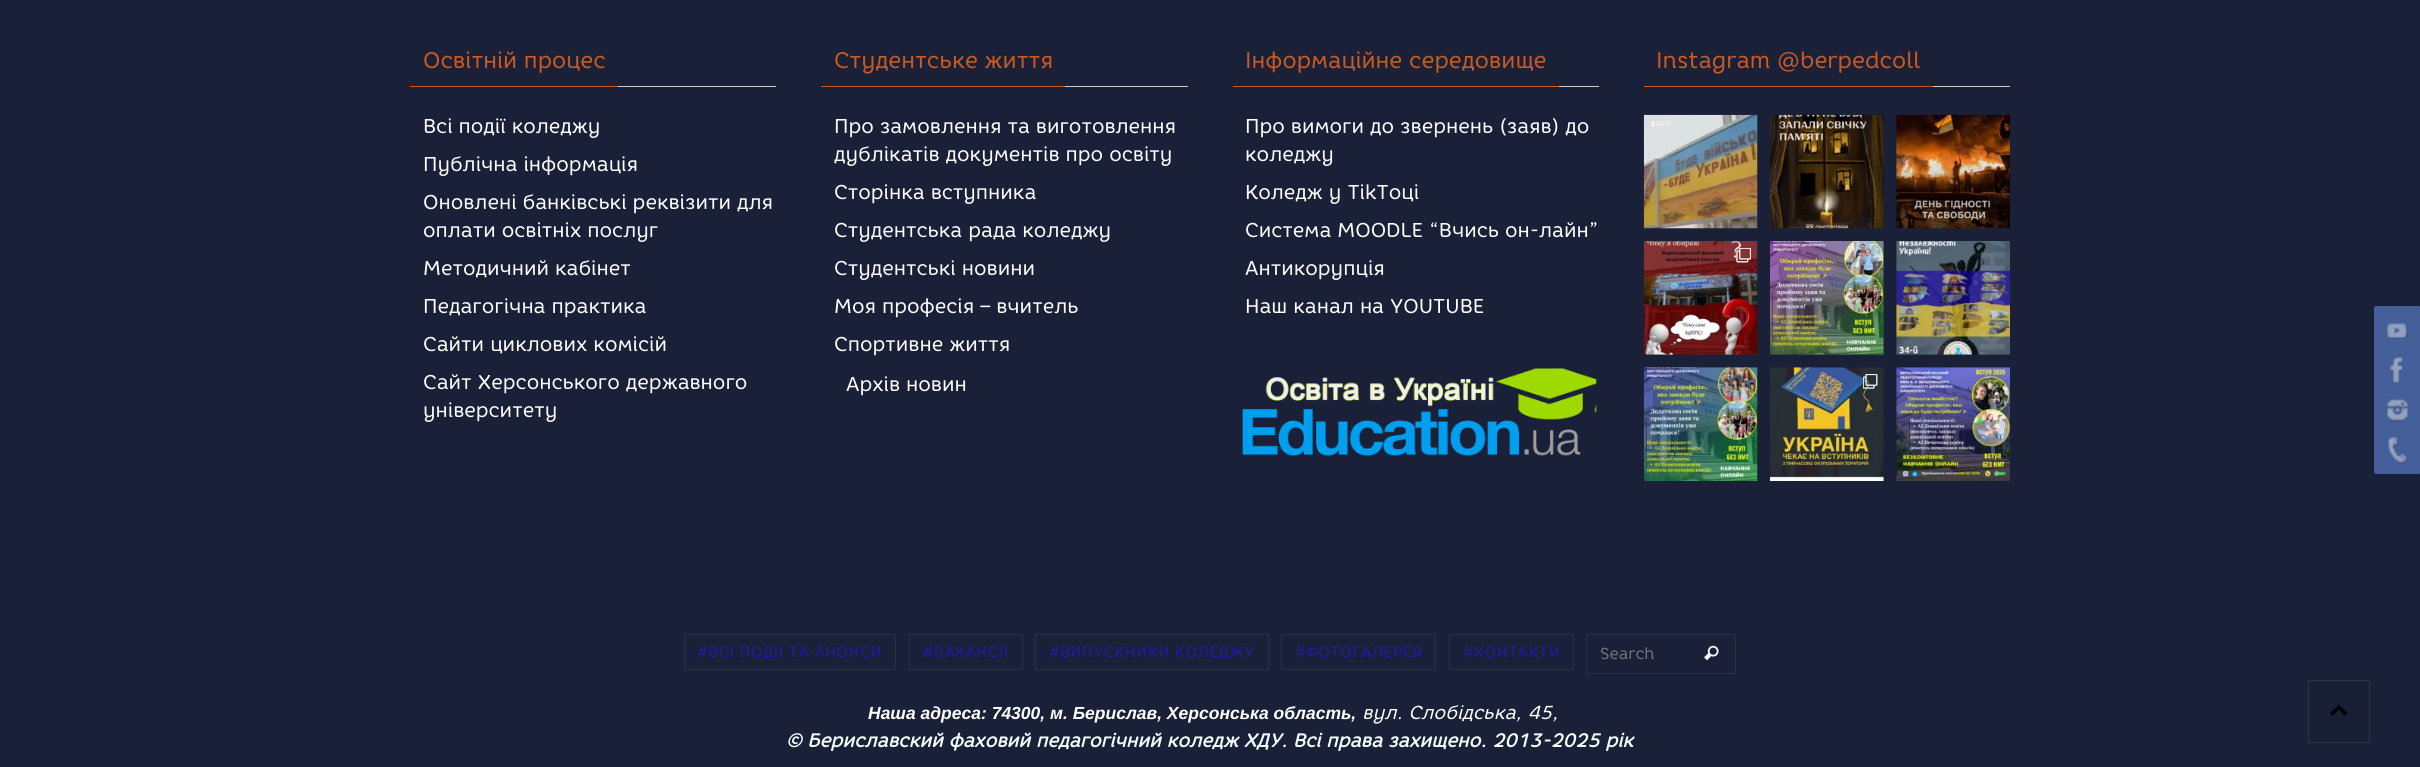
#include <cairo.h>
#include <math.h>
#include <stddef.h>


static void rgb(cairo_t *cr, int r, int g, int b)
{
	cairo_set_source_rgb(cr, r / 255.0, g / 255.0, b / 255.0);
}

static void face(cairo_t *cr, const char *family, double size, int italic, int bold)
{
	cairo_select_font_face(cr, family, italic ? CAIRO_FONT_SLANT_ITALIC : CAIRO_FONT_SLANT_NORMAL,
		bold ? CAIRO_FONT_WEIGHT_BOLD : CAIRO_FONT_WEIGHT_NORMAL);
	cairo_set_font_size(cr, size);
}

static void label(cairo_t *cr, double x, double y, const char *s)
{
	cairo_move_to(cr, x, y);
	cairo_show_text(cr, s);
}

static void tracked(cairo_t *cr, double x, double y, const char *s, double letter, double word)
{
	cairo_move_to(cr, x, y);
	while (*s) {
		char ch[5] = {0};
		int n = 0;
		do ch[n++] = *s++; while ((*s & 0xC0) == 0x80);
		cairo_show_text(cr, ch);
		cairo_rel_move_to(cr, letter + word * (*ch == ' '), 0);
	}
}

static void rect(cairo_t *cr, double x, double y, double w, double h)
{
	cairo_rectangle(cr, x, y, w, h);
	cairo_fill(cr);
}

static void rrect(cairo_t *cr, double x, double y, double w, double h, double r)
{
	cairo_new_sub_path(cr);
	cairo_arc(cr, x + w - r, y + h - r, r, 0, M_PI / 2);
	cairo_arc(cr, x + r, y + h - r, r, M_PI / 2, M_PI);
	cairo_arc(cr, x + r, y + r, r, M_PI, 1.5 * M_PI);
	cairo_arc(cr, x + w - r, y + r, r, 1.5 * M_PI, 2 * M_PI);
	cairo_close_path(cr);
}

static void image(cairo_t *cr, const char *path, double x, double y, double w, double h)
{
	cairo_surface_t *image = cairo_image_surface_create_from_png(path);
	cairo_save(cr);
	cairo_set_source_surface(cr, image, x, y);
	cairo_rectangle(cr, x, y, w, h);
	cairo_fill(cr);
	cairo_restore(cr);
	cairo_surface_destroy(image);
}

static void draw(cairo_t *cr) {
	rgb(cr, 26, 32, 55);
	cairo_paint(cr);
	rgb(cr, 204, 204, 204);
	rect(cr, 618, 86, 158, 1);
	rgb(cr, 203, 89, 32);
	rect(cr, 410, 86, 208, 1);
	face(cr, "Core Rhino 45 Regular", 22.5, 0, 0);
	label(cr, 423, 68, "Освітній процес");
	face(cr, "Core Rhino 45 Regular", 20, 0, 0);
	rgb(cr, 255, 255, 255);
	label(cr, 423, 133, "Всі події коледжу");
	label(cr, 423, 171, "Публічна інформація");
	label(cr, 423, 209, "Оновлені банківські реквізити для");
	label(cr, 423, 237, "оплати освітніх послуг");
	label(cr, 423, 275, "Методичний кабінет");
	label(cr, 423, 313, "Педагогічна практика");
	label(cr, 423, 351, "Сайти циклових комісій");
	label(cr, 423, 389, "Сайт Херсонського державного");
	label(cr, 423, 417, "університету");
	rgb(cr, 204, 204, 204);
	rect(cr, 1065, 86, 123, 1);
	rgb(cr, 203, 89, 32);
	rect(cr, 821, 86, 244, 1);
	face(cr, "Core Rhino 45 Regular", 22.5, 0, 0);
	label(cr, 834, 68, "Студентське життя");
	face(cr, "Core Rhino 45 Regular", 20, 0, 0);
	rgb(cr, 255, 255, 255);
	label(cr, 834, 133, "Про замовлення та виготовлення");
	label(cr, 834, 161, "дублікатів документів про освіту");
	label(cr, 834, 199, "Сторінка вступника");
	label(cr, 834, 237, "Студентська рада коледжу");
	label(cr, 834, 275, "Студентські новини");
	label(cr, 834, 313, "Моя професія – вчитель");
	label(cr, 834, 351, "Спортивне життя");
	label(cr, 846, 391, "Архів новин");
	rgb(cr, 204, 204, 204);
	rect(cr, 1559, 86, 40, 1);
	rgb(cr, 203, 89, 32);
	rect(cr, 1233, 86, 326, 1);
	face(cr, "Core Rhino 45 Regular", 22.5, 0, 0);
	label(cr, 1245, 68, "Інформаційне середовище");
	face(cr, "Core Rhino 45 Regular", 20, 0, 0);
	rgb(cr, 255, 255, 255);
	label(cr, 1245, 133, "Про вимоги до звернень (заяв) до");
	label(cr, 1245, 161, "коледжу");
	label(cr, 1245, 199, "Коледж у TikToці");
	label(cr, 1245, 237, "Система MOODLE “Вчись он-лайн”");
	label(cr, 1245, 275, "Антикорупція");
	label(cr, 1245, 313, "Наш канал на YOUTUBE");
	image(cr, "image0.png", 1242, 368, 355, 88);
	rgb(cr, 204, 204, 204);
	rect(cr, 1933, 86, 77, 1);
	rgb(cr, 203, 89, 32);
	rect(cr, 1644, 86, 289, 1);
	face(cr, "Core Rhino 45 Regular", 22.5, 0, 0);
	label(cr, 1656, 68, "Instagram @berpedcoll");
	image(cr, "image1.png", 1643, 114, 115, 115);
	image(cr, "image2.png", 1770, 114, 114, 115);
	image(cr, "image3.png", 1896, 114, 114, 115);
	image(cr, "image4.png", 1643, 241, 115, 114);
	image(cr, "image5.png", 1736, 248, 15, 15);
	image(cr, "image6.png", 1770, 241, 114, 114);
	image(cr, "image7.png", 1896, 241, 114, 114);
	image(cr, "image8.png", 1643, 367, 115, 114);
	image(cr, "image9.png", 1770, 367, 114, 114);
	image(cr, "image10.png", 1863, 374, 15, 15);
	image(cr, "image11.png", 1896, 367, 114, 114);
	cairo_rectangle(cr, 684.5, 634.5, 211, 35);
	rgb(cr, 41, 47, 70);
	cairo_set_line_width(cr, 1);
	cairo_stroke(cr);
	face(cr, "Core Rhino 45 Regular", 15, 0, 0);
	rgb(cr, 33, 25, 169);
	tracked(cr, 697, 657, "#ВСІ ПОДІЇ ТА АНОНСИ", 0.6, 0);
	cairo_rectangle(cr, 909.5, 634.5, 113, 35);
	rgb(cr, 41, 47, 70);
	cairo_stroke(cr);
	rgb(cr, 33, 25, 169);
	tracked(cr, 923, 657, "#ВАКАНСІЇ", 0.6, 0);
	cairo_rectangle(cr, 1035.5, 634.5, 233, 35);
	rgb(cr, 41, 47, 70);
	cairo_stroke(cr);
	rgb(cr, 33, 25, 169);
	tracked(cr, 1049, 657, "#ВИПУСКНИКИ КОЛЕДЖУ", 0.6, 0);
	cairo_rectangle(cr, 1281.5, 634.5, 154, 35);
	rgb(cr, 41, 47, 70);
	cairo_stroke(cr);
	rgb(cr, 33, 25, 169);
	tracked(cr, 1295, 657, "#ФОТОГАЛЕРЕЯ", 0.6, 0);
	cairo_rectangle(cr, 1449.5, 634.5, 124, 35);
	rgb(cr, 41, 47, 70);
	cairo_stroke(cr);
	rgb(cr, 33, 25, 169);
	tracked(cr, 1463, 657, "#КОНТАКТИ", 0.6, 0);
	cairo_rectangle(cr, 1586.5, 634.5, 149, 39);
	rgb(cr, 41, 47, 70);
	cairo_stroke(cr);
	face(cr, "Core Rhino 45 Regular", 16, 0, 0);
	rgb(cr, 117, 117, 117);
	label(cr, 1600, 659, "Search");
	image(cr, "image12.png", 1704, 645, 15, 16);
	face(cr, "Liberation Sans", 17.5, 1, 1);
	rgb(cr, 255, 255, 255);
	label(cr, 868, 719, "Наша адреса: 74300, м. Берислав, Херсонська область,");
	face(cr, "Core Rhino 45 Regular", 18.75, 1, 0);
	label(cr, 1362, 719, "вул. Слобідська, 45,");
	face(cr, "Core Rhino 45 Regular", 18.75, 1, 1);
	rgb(cr, 240, 255, 255);
	label(cr, 786, 747, "© Бериславский фаховий педагогічний коледж ХДУ. Всі права захищено. 2013-2025 рік");
	cairo_set_source_rgba(cr, 0, 0, 0, 0.06);
	rect(cr, 2308, 680, 62, 63);
	cairo_rectangle(cr, 2308.5, 680.5, 61, 62);
	cairo_set_source_rgba(cr, 1, 1, 1, 0.1);
	cairo_stroke(cr);
	rgb(cr, 2, 3, 2);
	cairo_new_path(cr);
	cairo_move_to(cr, 2330, 713);
	cairo_line_to(cr, 2339, 704.5);
	cairo_line_to(cr, 2347.5, 713);
	cairo_line_to(cr, 2345, 716);
	cairo_line_to(cr, 2339, 709.5);
	cairo_line_to(cr, 2332.5, 716);
	cairo_close_path(cr);
	cairo_fill(cr);
	rgb(cr, 68, 95, 154);
	rrect(cr, 2374, 306, 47, 48, 2.5);
	cairo_fill(cr);
	image(cr, "image13.png", 2387, 323, 21, 16);
	rrect(cr, 2374, 346, 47, 48, 2.5);
	cairo_fill(cr);
	image(cr, "image14.png", 2389, 357, 14, 28);
	rrect(cr, 2374, 386, 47, 48, 2.5);
	cairo_fill(cr);
	image(cr, "image15.png", 2386, 399, 23, 23);
	rrect(cr, 2374, 426, 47, 48, 2.5);
	cairo_fill(cr);
	image(cr, "image16.png", 2388, 437, 20, 28);
}

int main(void) {
	cairo_surface_t *surface = cairo_image_surface_create(CAIRO_FORMAT_RGB24, 2420, 767);
	cairo_t *cr = cairo_create(surface);
	cairo_font_options_t *options = cairo_font_options_create();
	cairo_font_options_set_hint_metrics(options, CAIRO_HINT_METRICS_OFF);
	cairo_font_options_set_hint_style(options, CAIRO_HINT_STYLE_NONE);
	cairo_set_font_options(cr, options);
	cairo_set_miter_limit(cr, 4);
	draw(cr);
	cairo_surface_write_to_png(surface, "render.png");
	cairo_font_options_destroy(options);
	cairo_destroy(cr);
	cairo_surface_destroy(surface);
	return 0;
}
